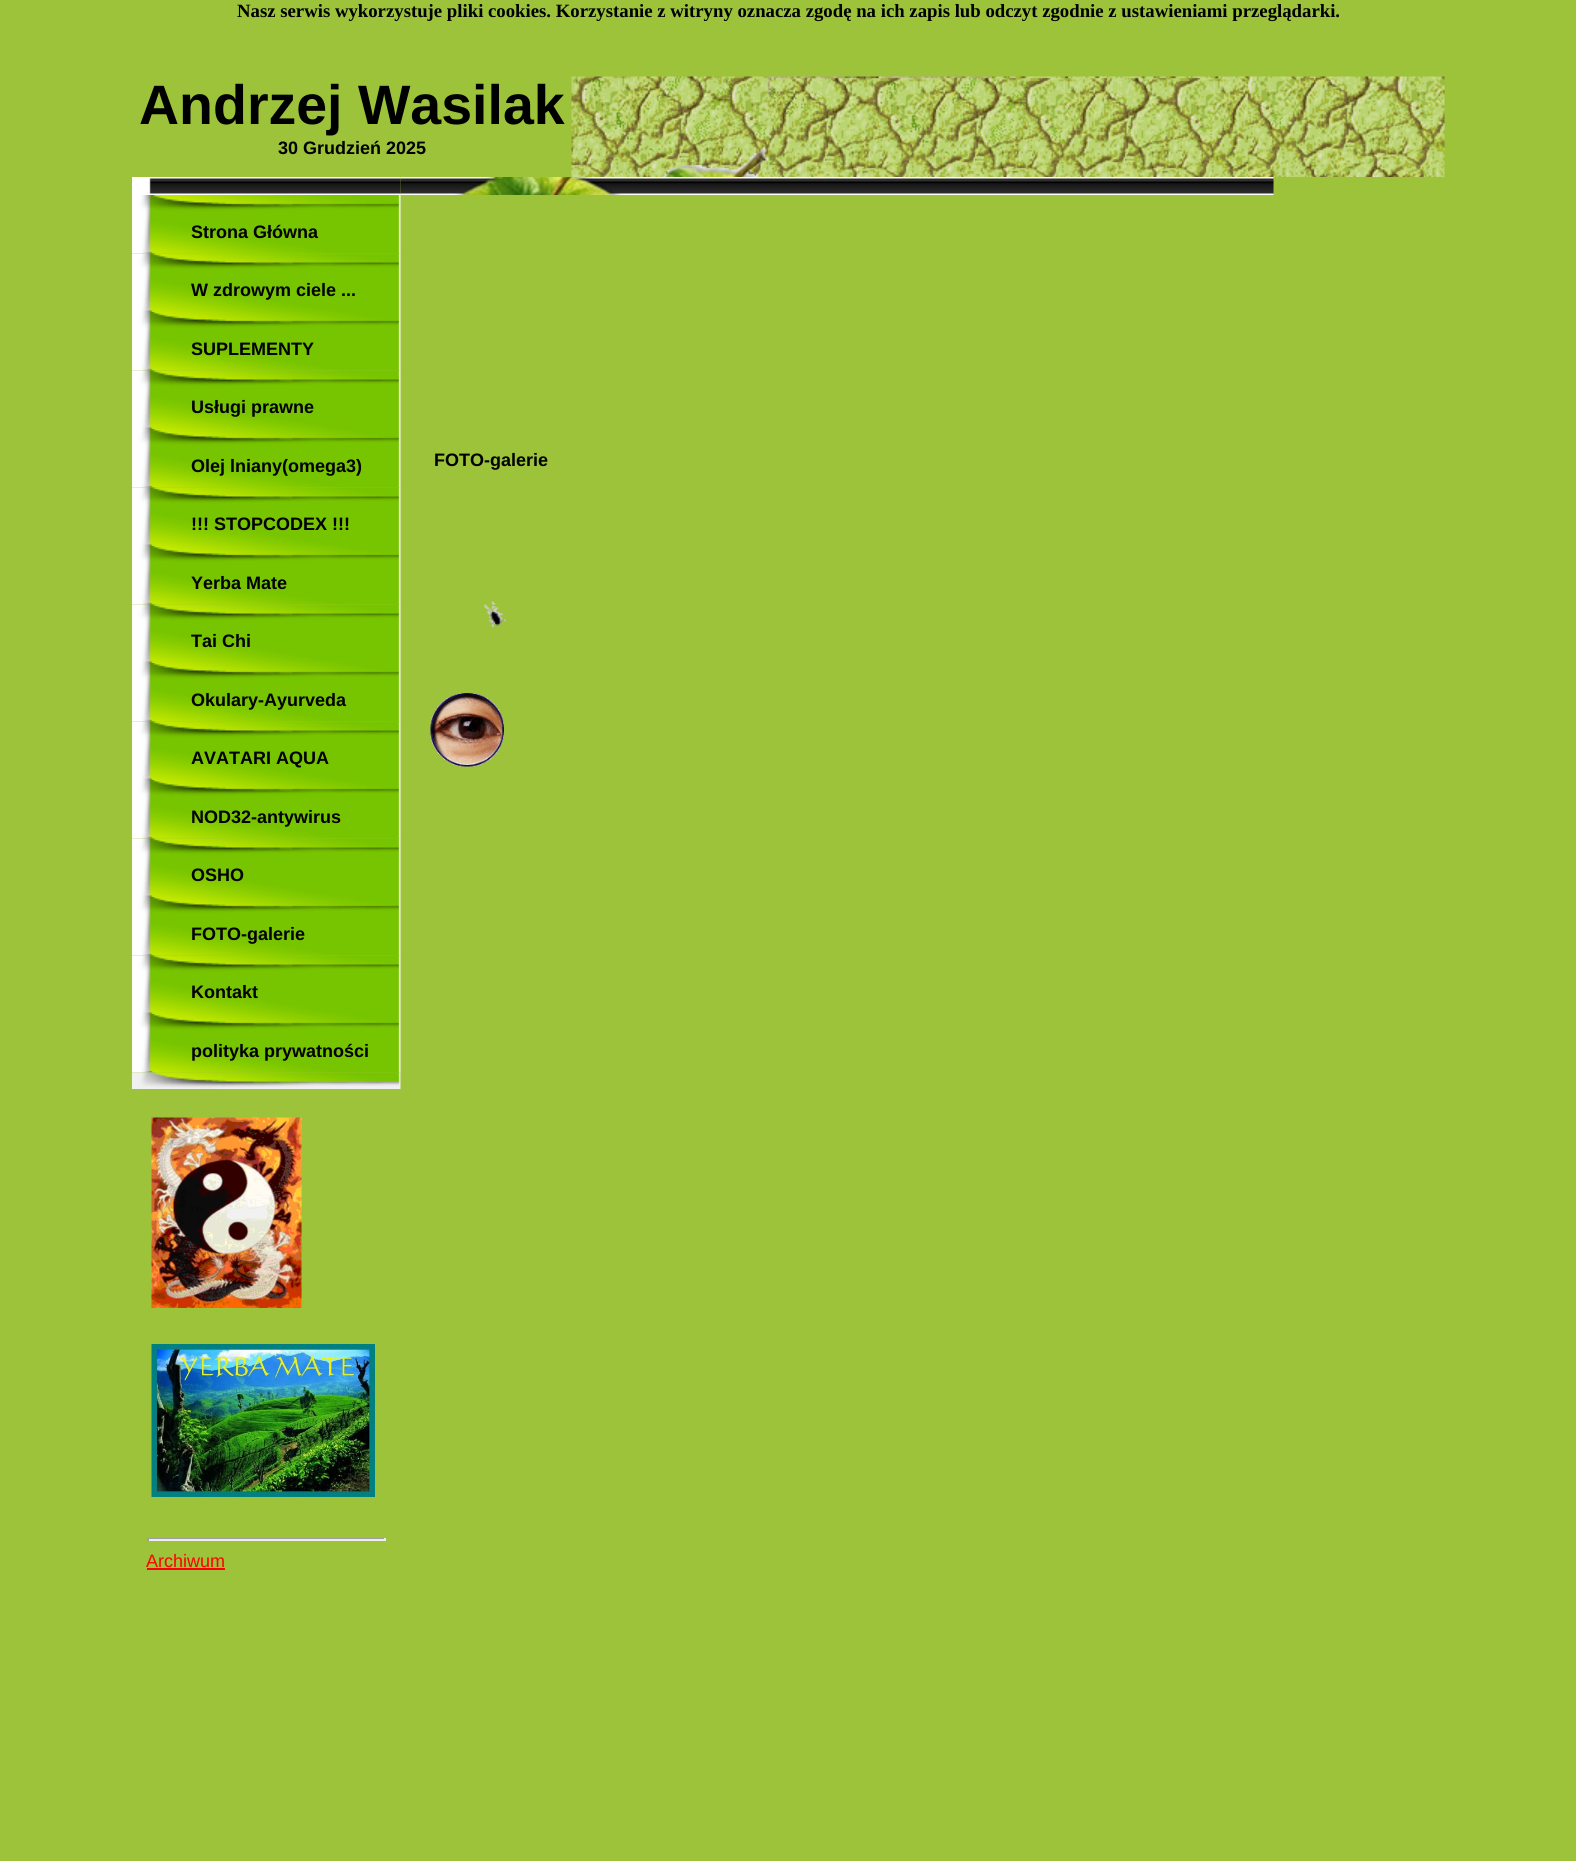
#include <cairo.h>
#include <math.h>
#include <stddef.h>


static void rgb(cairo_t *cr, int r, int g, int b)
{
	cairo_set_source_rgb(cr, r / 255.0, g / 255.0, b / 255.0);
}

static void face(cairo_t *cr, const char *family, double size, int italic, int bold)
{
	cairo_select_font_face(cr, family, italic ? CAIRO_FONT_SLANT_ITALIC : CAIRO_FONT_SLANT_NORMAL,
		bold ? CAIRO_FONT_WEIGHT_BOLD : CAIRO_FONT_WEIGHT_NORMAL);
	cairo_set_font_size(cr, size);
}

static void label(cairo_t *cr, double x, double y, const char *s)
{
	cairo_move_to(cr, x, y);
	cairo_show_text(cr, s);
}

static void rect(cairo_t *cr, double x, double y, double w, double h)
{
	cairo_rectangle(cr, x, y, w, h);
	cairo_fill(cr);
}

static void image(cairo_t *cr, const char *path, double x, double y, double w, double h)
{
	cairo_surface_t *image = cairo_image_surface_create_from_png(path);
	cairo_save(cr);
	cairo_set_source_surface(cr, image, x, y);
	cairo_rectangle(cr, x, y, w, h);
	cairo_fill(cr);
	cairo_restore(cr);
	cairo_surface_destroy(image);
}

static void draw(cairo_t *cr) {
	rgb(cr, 156, 195, 57);
	cairo_paint(cr);
	face(cr, "Liberation Serif", 18.75, 0, 1);
	rgb(cr, 0, 0, 0);
	label(cr, 237, 17, "Nasz serwis wykorzystuje pliki cookies. Korzystanie z witryny oznacza zgodę na ich zapis lub odczyt zgodnie z ustawieniami przeglądarki.");
	face(cr, "Liberation Sans", 55.5, 0, 1);
	label(cr, 139, 124, "Andrzej Wasilak");
	face(cr, "Liberation Sans", 18, 0, 1);
	label(cr, 278, 154, "30 Grudzień 2025");
	image(cr, "image0.png", 571, 76, 874, 101);
	image(cr, "image1.png", 132, 177, 269, 18);
	image(cr, "image2.png", 400, 177, 874, 18);
	image(cr, "image3.png", 132, 195, 269, 59);
	label(cr, 191, 238, "Strona Główna");
	image(cr, "image4.png", 132, 253, 269, 59);
	label(cr, 191, 296, "W zdrowym ciele ...");
	image(cr, "image3.png", 132, 312, 269, 59);
	label(cr, 191, 355, "SUPLEMENTY");
	image(cr, "image4.png", 132, 370, 269, 59);
	label(cr, 191, 413, "Usługi prawne");
	image(cr, "image3.png", 132, 429, 269, 59);
	label(cr, 191, 472, "Olej lniany(omega3)");
	image(cr, "image4.png", 132, 487, 269, 59);
	label(cr, 191, 530, "!!! STOPCODEX !!!");
	image(cr, "image3.png", 132, 546, 269, 59);
	label(cr, 191, 589, "Yerba Mate");
	image(cr, "image4.png", 132, 604, 269, 59);
	label(cr, 191, 647, "Tai Chi");
	image(cr, "image3.png", 132, 663, 269, 59);
	label(cr, 191, 706, "Okulary-Ayurveda");
	image(cr, "image4.png", 132, 721, 269, 59);
	label(cr, 191, 764, "AVATARI AQUA");
	image(cr, "image3.png", 132, 780, 269, 59);
	label(cr, 191, 823, "NOD32-antywirus");
	image(cr, "image4.png", 132, 838, 269, 59);
	label(cr, 191, 881, "OSHO");
	image(cr, "image3.png", 132, 897, 269, 59);
	label(cr, 191, 940, "FOTO-galerie");
	image(cr, "image4.png", 132, 955, 269, 59);
	label(cr, 191, 998, "Kontakt");
	image(cr, "image3.png", 132, 1014, 269, 59);
	label(cr, 191, 1057, "polityka prywatności");
	image(cr, "image5.png", 132, 1072, 269, 17);
	image(cr, "image6.png", 151, 1117, 151, 191);
	image(cr, "image7.png", 151, 1344, 224, 153);
	rgb(cr, 159, 159, 159);
	rect(cr, 147, 1538, 239, 1);
	rgb(cr, 238, 238, 238);
	rect(cr, 384, 1538, 2, 3);
	rect(cr, 147, 1539, 239, 2);
	rgb(cr, 159, 159, 159);
	rect(cr, 147, 1538, 2, 3);
	face(cr, "Liberation Sans", 18, 0, 0);
	rgb(cr, 255, 0, 0);
	label(cr, 146, 1567, "Archiwum");
	rect(cr, 147, 1568, 78, 2);
	face(cr, "Liberation Sans", 18, 0, 1);
	rgb(cr, 0, 0, 0);
	label(cr, 434, 466, "FOTO-galerie");
	image(cr, "image8.png", 484, 601, 22, 27);
	image(cr, "image9.png", 430, 693, 74, 74);
}

int main(void) {
	cairo_surface_t *surface = cairo_image_surface_create(CAIRO_FORMAT_RGB24, 1576, 1861);
	cairo_t *cr = cairo_create(surface);
	cairo_font_options_t *options = cairo_font_options_create();
	cairo_font_options_set_hint_metrics(options, CAIRO_HINT_METRICS_OFF);
	cairo_font_options_set_hint_style(options, CAIRO_HINT_STYLE_NONE);
	cairo_set_font_options(cr, options);
	cairo_set_miter_limit(cr, 4);
	draw(cr);
	cairo_surface_write_to_png(surface, "render.png");
	cairo_font_options_destroy(options);
	cairo_destroy(cr);
	cairo_surface_destroy(surface);
	return 0;
}
